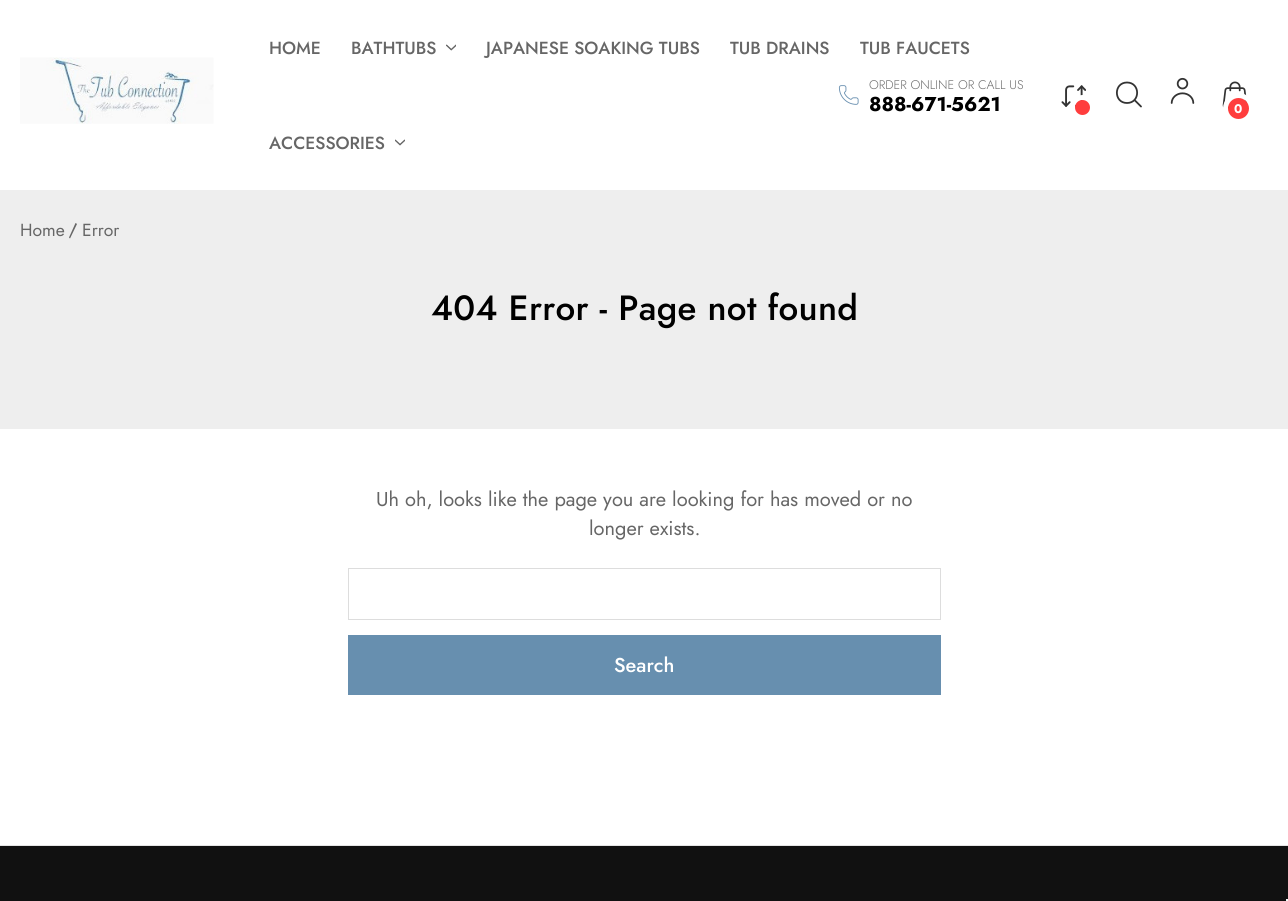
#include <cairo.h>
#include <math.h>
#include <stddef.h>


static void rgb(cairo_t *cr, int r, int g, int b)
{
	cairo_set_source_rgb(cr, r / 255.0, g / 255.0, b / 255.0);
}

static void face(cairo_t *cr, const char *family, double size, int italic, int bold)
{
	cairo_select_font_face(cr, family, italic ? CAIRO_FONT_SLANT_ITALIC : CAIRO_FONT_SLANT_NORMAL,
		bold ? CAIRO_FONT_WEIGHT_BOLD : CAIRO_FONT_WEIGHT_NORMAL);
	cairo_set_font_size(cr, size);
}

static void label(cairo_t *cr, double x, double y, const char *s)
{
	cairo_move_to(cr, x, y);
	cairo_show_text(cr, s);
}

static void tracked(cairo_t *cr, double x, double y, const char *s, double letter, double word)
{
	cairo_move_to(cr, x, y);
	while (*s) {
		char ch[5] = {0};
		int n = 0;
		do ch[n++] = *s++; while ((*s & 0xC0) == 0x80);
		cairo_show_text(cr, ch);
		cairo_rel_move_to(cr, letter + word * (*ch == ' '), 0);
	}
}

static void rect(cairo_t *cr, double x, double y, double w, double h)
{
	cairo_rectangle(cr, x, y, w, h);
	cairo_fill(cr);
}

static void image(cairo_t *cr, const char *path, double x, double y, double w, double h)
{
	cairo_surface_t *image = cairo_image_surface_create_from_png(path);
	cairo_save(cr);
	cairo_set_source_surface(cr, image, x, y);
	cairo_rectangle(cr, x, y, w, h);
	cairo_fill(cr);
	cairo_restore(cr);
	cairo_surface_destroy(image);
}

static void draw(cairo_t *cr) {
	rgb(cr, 255, 255, 255);
	cairo_paint(cr);
	image(cr, "image0.png", 20, 57, 194, 67);
	face(cr, "Jost Medium", 17.5, 0, 0);
	rgb(cr, 102, 102, 102);
	label(cr, 269, 54, "HOME");
	label(cr, 351, 54, "BATHTUBS");
	image(cr, "image1.png", 446, 44, 10, 7);
	label(cr, 486, 54, "JAPANESE SOAKING TUBS");
	label(cr, 730, 54, "TUB DRAINS");
	label(cr, 860, 54, "TUB FAUCETS");
	label(cr, 269, 149, "ACCESSORIES");
	image(cr, "image2.png", 395, 139, 10, 7);
	image(cr, "image3.png", 838, 85, 21, 20);
	face(cr, "Jost Light", 12.5, 0, 0);
	rgb(cr, 110, 110, 110);
	label(cr, 869, 89, "ORDER ONLINE OR CALL US");
	face(cr, "Jost", 20, 0, 1);
	rgb(cr, 0, 0, 0);
	label(cr, 869, 111, "888-671-5621");
	image(cr, "image4.png", 1061, 85, 25, 22);
	cairo_arc(cr, 1082.5, 107.5, 10, 0, 2 * M_PI);
	rgb(cr, 255, 255, 255);
	cairo_set_line_width(cr, 5);
	cairo_stroke(cr);
	rgb(cr, 255, 61, 61);
	cairo_arc(cr, 1082.5, 107.5, 7.5, 0, 2 * M_PI);
	cairo_fill(cr);
	cairo_new_path(cr);
	cairo_move_to(cr, 1127, 103);
	cairo_curve_to(cr, 1140.5, 103, 1140.5, 82.5, 1127, 82.5);
	cairo_curve_to(cr, 1113.5, 82.5, 1113.5, 103, 1127, 103);
	cairo_close_path(cr);
	cairo_move_to(cr, 1141, 106.5);
	cairo_line_to(cr, 1135, 100.5);
	rgb(cr, 51, 51, 51);
	cairo_set_line_width(cr, 1.8);
	cairo_set_line_cap(cr, CAIRO_LINE_CAP_ROUND);
	cairo_set_line_join(cr, CAIRO_LINE_JOIN_ROUND);
	cairo_stroke(cr);
	image(cr, "image5.png", 1170, 77, 25, 27);
	image(cr, "image6.png", 1222, 81, 26, 28);
	cairo_arc(cr, 1238.5, 108.5, 13, 0, 2 * M_PI);
	rgb(cr, 255, 255, 255);
	cairo_set_line_width(cr, 5);
	cairo_set_line_cap(cr, CAIRO_LINE_CAP_BUTT);
	cairo_set_line_join(cr, CAIRO_LINE_JOIN_MITER);
	cairo_stroke(cr);
	rgb(cr, 255, 61, 61);
	cairo_arc(cr, 1238.5, 108.5, 10.5, 0, 2 * M_PI);
	cairo_fill(cr);
	face(cr, "Jost", 12.5, 0, 1);
	rgb(cr, 255, 255, 255);
	label(cr, 1234, 113, "0");
	rgb(cr, 238, 238, 238);
	rect(cr, 0, 190, 1288, 239);
	face(cr, "Jost", 17.5, 0, 0);
	rgb(cr, 102, 102, 102);
	label(cr, 20, 236, "Home");
	cairo_new_path(cr);
	cairo_move_to(cr, 75.5, 223);
	cairo_line_to(cr, 77, 224);
	cairo_line_to(cr, 70, 238.5);
	cairo_line_to(cr, 69, 237.5);
	cairo_close_path(cr);
	cairo_fill(cr);
	label(cr, 82, 236, "Error");
	face(cr, "Jost Medium", 35, 0, 0);
	rgb(cr, 0, 0, 0);
	tracked(cr, 431, 320, "404 Error - Page not found", 0.3, 0);
	face(cr, "Jost", 20, 0, 0);
	rgb(cr, 102, 102, 102);
	label(cr, 376, 506, "Uh oh, looks like the page you are looking for has moved or no");
	label(cr, 589, 535, "longer exists.");
	cairo_rectangle(cr, 348.5, 568.5, 592, 51);
	rgb(cr, 221, 221, 221);
	cairo_set_line_width(cr, 1);
	cairo_stroke(cr);
	rgb(cr, 103, 143, 175);
	rect(cr, 348, 635, 593, 60);
	face(cr, "Jost Medium", 20, 0, 0);
	rgb(cr, 255, 255, 255);
	label(cr, 614, 672, "Search");
	rgb(cr, 17, 17, 17);
	rect(cr, 0, 846, 1288, 55);
	rgb(cr, 229, 229, 229);
	rect(cr, 0, 845, 1288, 1);
	rgb(cr, 245, 245, 245);
	rect(cr, 1286, 899, 2, 2);
}

int main(void) {
	cairo_surface_t *surface = cairo_image_surface_create(CAIRO_FORMAT_RGB24, 1288, 901);
	cairo_t *cr = cairo_create(surface);
	cairo_font_options_t *options = cairo_font_options_create();
	cairo_font_options_set_hint_metrics(options, CAIRO_HINT_METRICS_OFF);
	cairo_font_options_set_hint_style(options, CAIRO_HINT_STYLE_NONE);
	cairo_set_font_options(cr, options);
	cairo_set_miter_limit(cr, 4);
	draw(cr);
	cairo_surface_write_to_png(surface, "render.png");
	cairo_font_options_destroy(options);
	cairo_destroy(cr);
	cairo_surface_destroy(surface);
	return 0;
}
